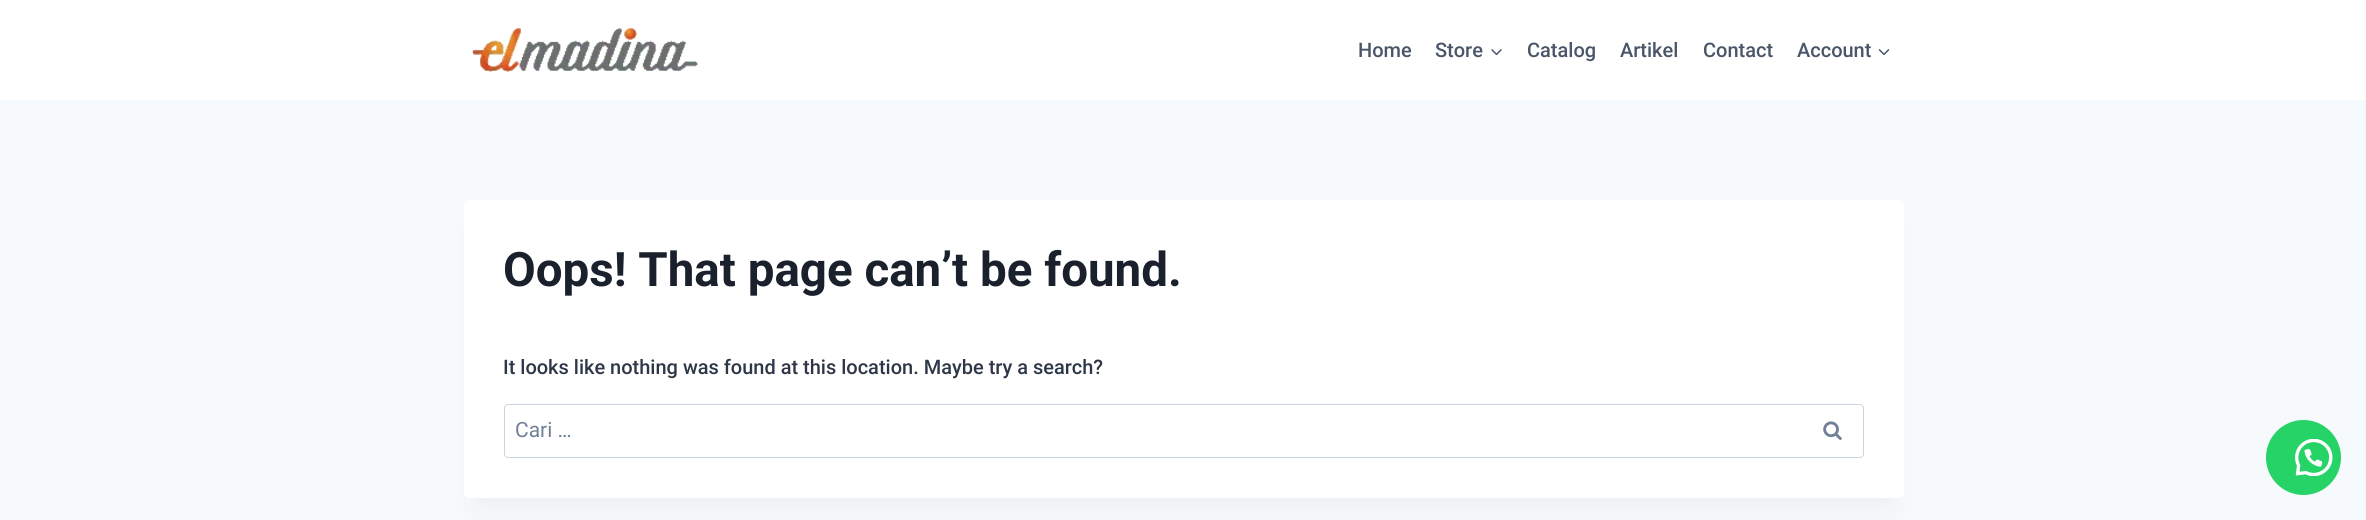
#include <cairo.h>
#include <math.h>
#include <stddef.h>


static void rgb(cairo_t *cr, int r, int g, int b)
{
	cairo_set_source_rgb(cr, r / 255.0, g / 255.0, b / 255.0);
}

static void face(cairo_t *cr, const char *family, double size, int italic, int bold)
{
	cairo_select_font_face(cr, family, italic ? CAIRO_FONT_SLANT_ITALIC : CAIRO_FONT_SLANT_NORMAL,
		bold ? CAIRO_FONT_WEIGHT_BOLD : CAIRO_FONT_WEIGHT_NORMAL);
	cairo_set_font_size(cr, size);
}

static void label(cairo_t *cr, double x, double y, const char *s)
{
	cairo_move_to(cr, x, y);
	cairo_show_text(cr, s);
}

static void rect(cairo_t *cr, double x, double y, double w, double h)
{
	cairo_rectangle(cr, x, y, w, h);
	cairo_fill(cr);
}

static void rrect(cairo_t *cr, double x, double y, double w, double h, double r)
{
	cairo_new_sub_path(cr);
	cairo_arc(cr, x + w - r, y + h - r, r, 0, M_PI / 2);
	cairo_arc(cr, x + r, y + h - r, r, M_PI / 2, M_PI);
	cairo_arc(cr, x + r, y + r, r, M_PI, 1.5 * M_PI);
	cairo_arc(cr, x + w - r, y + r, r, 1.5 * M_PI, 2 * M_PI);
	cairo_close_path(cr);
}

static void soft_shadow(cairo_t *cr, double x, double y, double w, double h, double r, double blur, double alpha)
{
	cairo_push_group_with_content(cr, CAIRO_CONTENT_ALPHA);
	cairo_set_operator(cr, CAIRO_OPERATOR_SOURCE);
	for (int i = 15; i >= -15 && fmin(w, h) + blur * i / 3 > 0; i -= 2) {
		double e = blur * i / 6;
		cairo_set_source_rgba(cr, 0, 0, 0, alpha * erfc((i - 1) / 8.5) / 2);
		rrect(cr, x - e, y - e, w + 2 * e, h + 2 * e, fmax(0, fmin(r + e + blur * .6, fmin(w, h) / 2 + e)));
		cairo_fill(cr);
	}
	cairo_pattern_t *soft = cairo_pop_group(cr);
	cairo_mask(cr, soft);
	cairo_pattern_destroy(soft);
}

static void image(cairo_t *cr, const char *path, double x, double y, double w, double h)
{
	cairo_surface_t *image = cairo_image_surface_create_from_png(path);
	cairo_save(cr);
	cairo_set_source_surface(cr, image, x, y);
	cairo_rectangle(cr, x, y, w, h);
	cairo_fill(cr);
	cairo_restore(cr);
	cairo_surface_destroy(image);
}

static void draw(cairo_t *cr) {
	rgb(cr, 247, 250, 252);
	cairo_paint(cr);
	rgb(cr, 255, 255, 255);
	rect(cr, 0, 0, 2366, 100);
	image(cr, "image0.png", 471, 28, 227, 44);
	face(cr, "Roboto Medium", 20, 0, 0);
	rgb(cr, 74, 85, 104);
	label(cr, 1358, 57, "Home");
	label(cr, 1435, 57, "Store");
	image(cr, "image1.png", 1491, 49, 11, 7);
	label(cr, 1527, 57, "Catalog");
	label(cr, 1620, 57, "Artikel");
	label(cr, 1703, 57, "Contact");
	label(cr, 1797, 57, "Account");
	image(cr, "image2.png", 1878, 49, 12, 7);
	rgb(cr, 0, 0, 0);
	soft_shadow(cr, 476, 231, 1415, 273, 0, 15.5, 0.05);
	rgb(cr, 255, 255, 255);
	rrect(cr, 464, 200, 1440, 298, 5);
	cairo_fill(cr);
	face(cr, "Roboto", 47.5, 0, 1);
	rgb(cr, 26, 32, 44);
	label(cr, 503, 286, "Oops! That page can’t be found.");
	face(cr, "Roboto Medium", 20, 0, 0);
	rgb(cr, 45, 55, 72);
	label(cr, 503, 374, "It looks like nothing was found at this location. Maybe try a search?");
	rrect(cr, 504.5, 404.5, 1359, 53, 3.5);
	rgb(cr, 203, 213, 224);
	cairo_set_line_width(cr, 1);
	cairo_stroke(cr);
	face(cr, "Roboto", 21, 0, 0);
	rgb(cr, 113, 128, 150);
	label(cr, 515, 437, "Cari …");
	image(cr, "image3.png", 1823, 421, 19, 19);
	rgb(cr, 37, 211, 102);
	cairo_arc(cr, 2303.5, 457.5, 37.5, 0, 2 * M_PI);
	cairo_fill(cr);
	image(cr, "image4.png", 2295, 439, 38, 37);
}

int main(void) {
	cairo_surface_t *surface = cairo_image_surface_create(CAIRO_FORMAT_RGB24, 2366, 520);
	cairo_t *cr = cairo_create(surface);
	cairo_font_options_t *options = cairo_font_options_create();
	cairo_font_options_set_hint_metrics(options, CAIRO_HINT_METRICS_OFF);
	cairo_font_options_set_hint_style(options, CAIRO_HINT_STYLE_NONE);
	cairo_set_font_options(cr, options);
	cairo_set_miter_limit(cr, 4);
	draw(cr);
	cairo_surface_write_to_png(surface, "render.png");
	cairo_font_options_destroy(options);
	cairo_destroy(cr);
	cairo_surface_destroy(surface);
	return 0;
}
